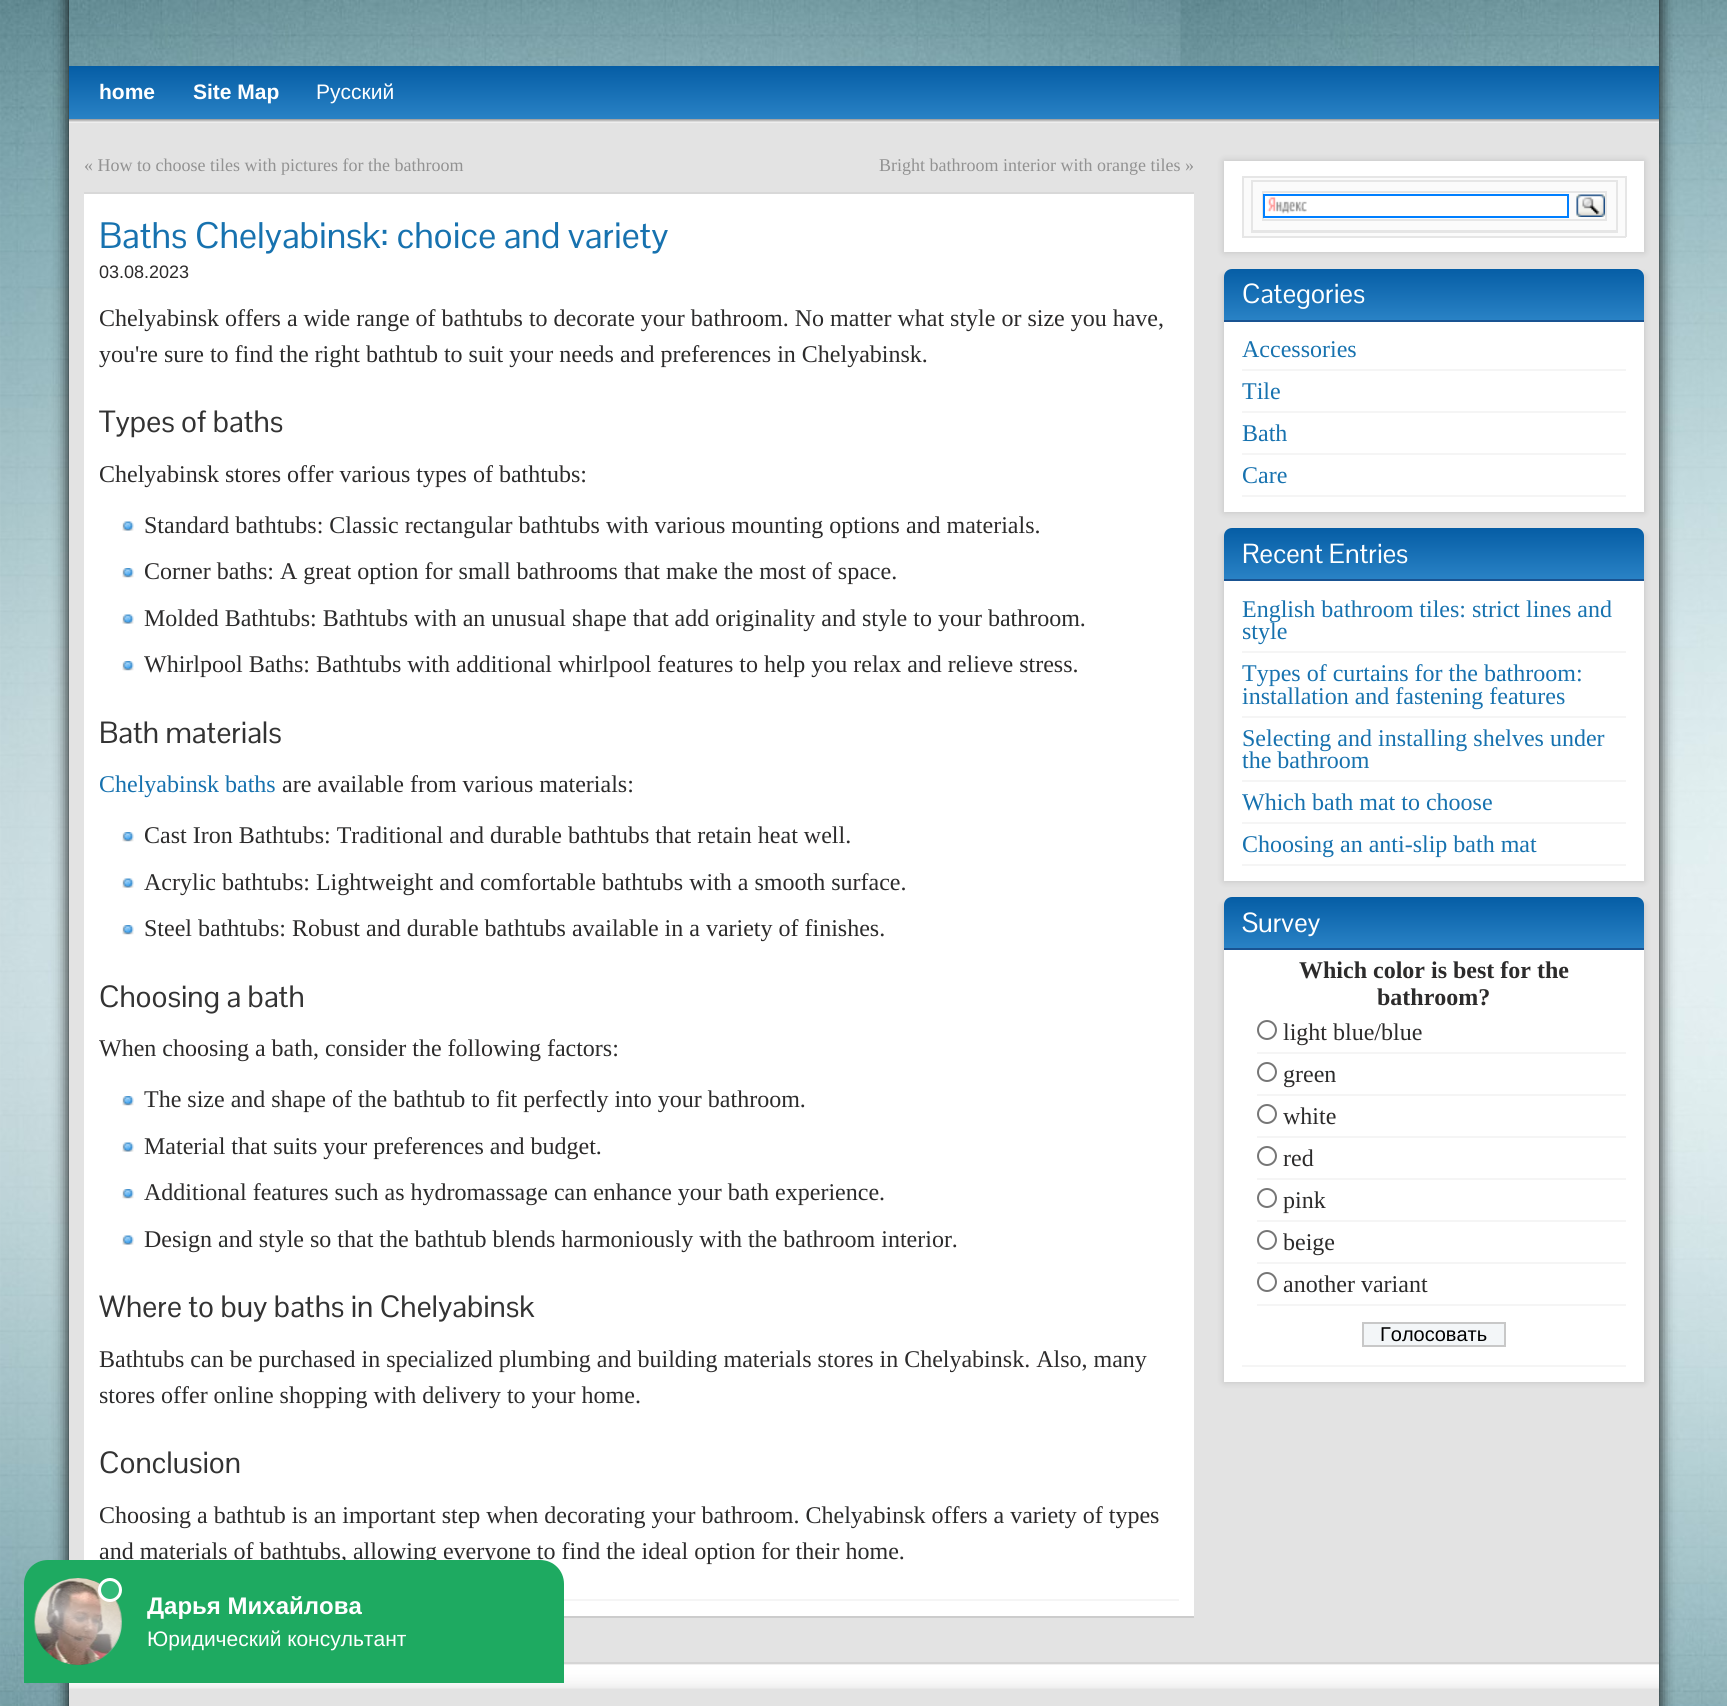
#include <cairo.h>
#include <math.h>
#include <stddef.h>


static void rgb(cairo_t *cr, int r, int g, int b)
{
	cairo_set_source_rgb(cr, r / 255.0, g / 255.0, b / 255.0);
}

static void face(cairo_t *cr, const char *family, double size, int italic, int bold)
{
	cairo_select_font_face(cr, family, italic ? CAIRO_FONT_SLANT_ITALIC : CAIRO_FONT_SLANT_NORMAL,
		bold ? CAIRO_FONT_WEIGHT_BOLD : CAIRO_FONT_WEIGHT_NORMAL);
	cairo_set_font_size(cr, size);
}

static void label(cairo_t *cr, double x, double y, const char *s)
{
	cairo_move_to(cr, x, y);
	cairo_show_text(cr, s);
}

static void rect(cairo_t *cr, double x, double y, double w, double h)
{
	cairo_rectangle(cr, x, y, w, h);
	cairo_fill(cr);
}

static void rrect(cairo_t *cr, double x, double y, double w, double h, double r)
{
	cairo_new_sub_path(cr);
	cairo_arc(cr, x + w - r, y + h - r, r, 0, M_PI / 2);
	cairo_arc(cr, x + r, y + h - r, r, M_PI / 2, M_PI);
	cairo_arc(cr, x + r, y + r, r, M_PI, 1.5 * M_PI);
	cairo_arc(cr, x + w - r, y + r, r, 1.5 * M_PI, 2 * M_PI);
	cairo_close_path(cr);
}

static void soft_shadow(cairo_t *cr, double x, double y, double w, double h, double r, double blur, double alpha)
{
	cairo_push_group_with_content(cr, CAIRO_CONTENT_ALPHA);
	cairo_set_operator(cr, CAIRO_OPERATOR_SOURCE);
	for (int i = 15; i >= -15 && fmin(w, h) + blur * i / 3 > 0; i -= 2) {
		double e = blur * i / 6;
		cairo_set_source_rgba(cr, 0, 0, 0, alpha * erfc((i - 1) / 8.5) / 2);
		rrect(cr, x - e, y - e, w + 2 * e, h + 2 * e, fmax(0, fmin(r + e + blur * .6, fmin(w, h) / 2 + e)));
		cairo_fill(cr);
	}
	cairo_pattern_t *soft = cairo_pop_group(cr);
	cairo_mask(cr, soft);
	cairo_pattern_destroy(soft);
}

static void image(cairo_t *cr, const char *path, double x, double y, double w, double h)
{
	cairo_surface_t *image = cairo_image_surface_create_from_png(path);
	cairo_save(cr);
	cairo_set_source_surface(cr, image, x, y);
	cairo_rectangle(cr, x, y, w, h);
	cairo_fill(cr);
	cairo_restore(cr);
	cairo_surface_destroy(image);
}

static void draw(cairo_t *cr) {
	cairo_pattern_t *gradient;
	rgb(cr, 255, 255, 255);
	cairo_paint(cr);
	image(cr, "image0.png", 0, 0, 1727, 1706);
	cairo_save(cr);
	cairo_set_fill_rule(cr, CAIRO_FILL_RULE_EVEN_ODD);
	cairo_new_path(cr);
	cairo_move_to(cr, 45, 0);
	cairo_line_to(cr, 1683, 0);
	cairo_line_to(cr, 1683, 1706);
	cairo_line_to(cr, 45, 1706);
	cairo_close_path(cr);
	cairo_move_to(cr, 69, -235);
	cairo_line_to(cr, 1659, -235);
	cairo_line_to(cr, 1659, 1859);
	cairo_line_to(cr, 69, 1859);
	cairo_close_path(cr);
	cairo_clip(cr);
	rgb(cr, 0, 0, 0);
	soft_shadow(cr, 69, -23, 1590, 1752, 0, 7.5, 1);
	cairo_restore(cr);
	gradient = cairo_pattern_create_linear(864, 66, 864, 119);
	cairo_pattern_add_color_stop_rgba(gradient, 0, 0.02, 0.365, 0.647, 1);
	cairo_pattern_add_color_stop_rgba(gradient, 1, 0.161, 0.51, 0.773, 1);
	cairo_set_source(cr, gradient);
	cairo_pattern_destroy(gradient);
	rect(cr, 69, 66, 1590, 53);
	face(cr, "Liberation Sans", 21, 0, 1);
	rgb(cr, 255, 255, 255);
	label(cr, 99, 99, "home");
	label(cr, 193, 99, "Site Map");
	face(cr, "Liberation Sans", 21, 0, 0);
	label(cr, 316, 99, "Русский");
	rgb(cr, 238, 238, 238);
	rect(cr, 69, 119, 1590, 4);
	image(cr, "image1.png", 69, 119, 1590, 3);
	rgb(cr, 227, 227, 227);
	rect(cr, 69, 123, 1590, 1539);
	face(cr, "Liberation Serif", 18, 0, 0);
	rgb(cr, 146, 146, 146);
	label(cr, 84, 171, "« How to choose tiles with pictures for the bathroom");
	label(cr, 879, 171, "Bright bathroom interior with orange tiles »");
	rgb(cr, 255, 255, 255);
	rect(cr, 84, 194, 1110, 1422);
	rgb(cr, 216, 216, 216);
	rect(cr, 84, 192, 1110, 2);
	rgb(cr, 204, 204, 204);
	rect(cr, 564, 1616, 630, 2);
	face(cr, "Pontano Sans", 36, 0, 0);
	rgb(cr, 23, 114, 175);
	label(cr, 99, 248, "Baths Chelyabinsk: choice and variety");
	face(cr, "Liberation Sans", 18, 0, 0);
	rgb(cr, 44, 43, 43);
	label(cr, 99, 278, "03.08.2023");
	face(cr, "Liberation Serif", 24, 0, 0);
	label(cr, 99, 326, "Chelyabinsk offers a wide range of bathtubs to decorate your bathroom. No matter what style or size you have,");
	label(cr, 99, 362, "you're sure to find the right bathtub to suit your needs and preferences in Chelyabinsk.");
	face(cr, "Pontano Sans", 30, 0, 0);
	rgb(cr, 51, 51, 51);
	label(cr, 99, 432, "Types of baths");
	face(cr, "Liberation Serif", 24, 0, 0);
	rgb(cr, 44, 43, 43);
	label(cr, 99, 482, "Chelyabinsk stores offer various types of bathtubs:");
	image(cr, "image2.png", 122, 521, 12, 10);
	label(cr, 144, 533, "Standard bathtubs: Classic rectangular bathtubs with various mounting options and materials.");
	image(cr, "image3.png", 122, 568, 12, 10);
	label(cr, 144, 579, "Corner baths: A great option for small bathrooms that make the most of space.");
	image(cr, "image2.png", 122, 614, 12, 10);
	label(cr, 144, 626, "Molded Bathtubs: Bathtubs with an unusual shape that add originality and style to your bathroom.");
	image(cr, "image3.png", 122, 661, 12, 10);
	label(cr, 144, 672, "Whirlpool Baths: Bathtubs with additional whirlpool features to help you relax and relieve stress.");
	face(cr, "Pontano Sans", 30, 0, 0);
	rgb(cr, 51, 51, 51);
	label(cr, 99, 743, "Bath materials");
	face(cr, "Liberation Serif", 24, 0, 0);
	rgb(cr, 23, 114, 175);
	label(cr, 99, 792, "Chelyabinsk baths");
	rgb(cr, 44, 43, 43);
	label(cr, 282, 792, "are available from various materials:");
	image(cr, "image3.png", 122, 832, 12, 10);
	label(cr, 144, 843, "Cast Iron Bathtubs: Traditional and durable bathtubs that retain heat well.");
	image(cr, "image2.png", 122, 878, 12, 10);
	label(cr, 144, 890, "Acrylic bathtubs: Lightweight and comfortable bathtubs with a smooth surface.");
	image(cr, "image3.png", 122, 925, 12, 10);
	label(cr, 144, 936, "Steel bathtubs: Robust and durable bathtubs available in a variety of finishes.");
	face(cr, "Pontano Sans", 30, 0, 0);
	rgb(cr, 51, 51, 51);
	label(cr, 99, 1007, "Choosing a bath");
	face(cr, "Liberation Serif", 24, 0, 0);
	rgb(cr, 44, 43, 43);
	label(cr, 99, 1056, "When choosing a bath, consider the following factors:");
	image(cr, "image3.png", 122, 1096, 12, 10);
	label(cr, 144, 1107, "The size and shape of the bathtub to fit perfectly into your bathroom.");
	image(cr, "image2.png", 122, 1142, 12, 10);
	label(cr, 144, 1154, "Material that suits your preferences and budget.");
	image(cr, "image3.png", 122, 1189, 12, 10);
	label(cr, 144, 1200, "Additional features such as hydromassage can enhance your bath experience.");
	image(cr, "image2.png", 122, 1235, 12, 10);
	label(cr, 144, 1247, "Design and style so that the bathtub blends harmoniously with the bathroom interior.");
	face(cr, "Pontano Sans", 30, 0, 0);
	rgb(cr, 51, 51, 51);
	label(cr, 99, 1317, "Where to buy baths in Chelyabinsk");
	face(cr, "Liberation Serif", 24, 0, 0);
	rgb(cr, 44, 43, 43);
	label(cr, 99, 1367, "Bathtubs can be purchased in specialized plumbing and building materials stores in Chelyabinsk. Also, many");
	label(cr, 99, 1403, "stores offer online shopping with delivery to your home.");
	face(cr, "Pontano Sans", 30, 0, 0);
	rgb(cr, 51, 51, 51);
	label(cr, 99, 1473, "Conclusion");
	face(cr, "Liberation Serif", 24, 0, 0);
	rgb(cr, 44, 43, 43);
	label(cr, 99, 1523, "Choosing a bathtub is an important step when decorating your bathroom. Chelyabinsk offers a variety of types");
	label(cr, 99, 1559, "and materials of bathtubs, allowing everyone to find the ideal option for their home.");
	rgb(cr, 245, 245, 245);
	rect(cr, 564, 1599, 615, 2);
	rgb(cr, 0, 0, 0);
	soft_shadow(cr, 1224, 161, 420, 91, 0, 4, 0.15);
	rgb(cr, 255, 255, 255);
	rect(cr, 1224, 161, 420, 91);
	rgb(cr, 251, 251, 251);
	rect(cr, 1244, 178, 381, 58);
	rgb(cr, 230, 230, 230);
	rect(cr, 1242, 176, 384, 2);
	rect(cr, 1625, 176, 2, 61);
	rect(cr, 1242, 236, 384, 2);
	rect(cr, 1242, 176, 2, 61);
	rect(cr, 1251, 180, 366, 2);
	rect(cr, 1251, 230, 366, 3);
	rect(cr, 1617, 230, 1, 3);
	rect(cr, 1616, 180, 2, 51);
	rect(cr, 1251, 180, 2, 51);
	rect(cr, 1262, 191, 345, 2);
	rect(cr, 1605, 191, 2, 30);
	rect(cr, 1262, 219, 345, 2);
	rect(cr, 1262, 191, 2, 30);
	rgb(cr, 255, 255, 255);
	rect(cr, 1265, 196, 302, 20);
	image(cr, "image4.png", 1267, 197, 40, 17);
	cairo_rectangle(cr, 1264, 195, 304, 22);
	rgb(cr, 0, 127, 255);
	cairo_stroke(cr);
	image(cr, "image5.png", 1576, 194, 29, 23);
	rgb(cr, 0, 0, 0);
	soft_shadow(cr, 1224, 276, 420, 236, 0, 4, 0.15);
	rgb(cr, 255, 255, 255);
	rect(cr, 1224, 276, 420, 236);
	gradient = cairo_pattern_create_linear(1434, 268, 1434, 320);
	cairo_pattern_add_color_stop_rgba(gradient, 0, 0.02, 0.365, 0.647, 1);
	cairo_pattern_add_color_stop_rgba(gradient, 1, 0.161, 0.51, 0.773, 1);
	cairo_set_source(cr, gradient);
	cairo_pattern_destroy(gradient);
	cairo_new_path(cr);
	cairo_move_to(cr, 1232, 269);
	cairo_line_to(cr, 1636, 269);
	cairo_curve_to(cr, 1640.5, 269, 1644, 272.5, 1644, 277);
	cairo_line_to(cr, 1644, 320);
	cairo_line_to(cr, 1224, 320);
	cairo_line_to(cr, 1224, 277);
	cairo_curve_to(cr, 1224, 272.5, 1227.5, 269, 1232, 269);
	cairo_close_path(cr);
	cairo_fill(cr);
	rgb(cr, 25, 83, 146);
	rect(cr, 1224, 320, 420, 2);
	face(cr, "Pontano Sans", 27, 0, 0);
	rgb(cr, 255, 255, 255);
	label(cr, 1242, 303, "Categories");
	rgb(cr, 245, 245, 245);
	rect(cr, 1242, 369, 384, 2);
	face(cr, "Liberation Serif", 24, 0, 0);
	rgb(cr, 23, 114, 175);
	label(cr, 1242, 357, "Accessories");
	rgb(cr, 245, 245, 245);
	rect(cr, 1242, 411, 384, 2);
	rgb(cr, 23, 114, 175);
	label(cr, 1242, 399, "Tile");
	rgb(cr, 245, 245, 245);
	rect(cr, 1242, 453, 384, 2);
	rgb(cr, 23, 114, 175);
	label(cr, 1242, 441, "Bath");
	rgb(cr, 245, 245, 245);
	rect(cr, 1242, 495, 384, 2);
	rgb(cr, 23, 114, 175);
	label(cr, 1242, 483, "Care");
	rgb(cr, 0, 0, 0);
	soft_shadow(cr, 1224, 536, 420, 345, 0, 4, 0.15);
	rgb(cr, 255, 255, 255);
	rect(cr, 1224, 581, 420, 300);
	gradient = cairo_pattern_create_linear(1434, 528, 1434, 579);
	cairo_pattern_add_color_stop_rgba(gradient, 0, 0.02, 0.365, 0.647, 1);
	cairo_pattern_add_color_stop_rgba(gradient, 1, 0.161, 0.51, 0.773, 1);
	cairo_set_source(cr, gradient);
	cairo_pattern_destroy(gradient);
	cairo_new_path(cr);
	cairo_move_to(cr, 1232, 528);
	cairo_line_to(cr, 1636, 528);
	cairo_curve_to(cr, 1640.5, 528, 1644, 531.5, 1644, 536);
	cairo_line_to(cr, 1644, 579);
	cairo_line_to(cr, 1224, 579);
	cairo_line_to(cr, 1224, 536);
	cairo_curve_to(cr, 1224, 531.5, 1227.5, 528, 1232, 528);
	cairo_close_path(cr);
	cairo_fill(cr);
	rgb(cr, 25, 83, 146);
	rect(cr, 1224, 579, 420, 2);
	face(cr, "Pontano Sans", 27, 0, 0);
	rgb(cr, 255, 255, 255);
	label(cr, 1242, 563, "Recent Entries");
	rgb(cr, 245, 245, 245);
	rect(cr, 1242, 651, 384, 2);
	face(cr, "Liberation Serif", 24, 0, 0);
	rgb(cr, 23, 114, 175);
	label(cr, 1242, 617, "English bathroom tiles: strict lines and");
	label(cr, 1242, 639, "style");
	rgb(cr, 245, 245, 245);
	rect(cr, 1242, 716, 384, 2);
	rgb(cr, 23, 114, 175);
	label(cr, 1242, 681, "Types of curtains for the bathroom:");
	label(cr, 1242, 704, "installation and fastening features");
	rgb(cr, 245, 245, 245);
	rect(cr, 1242, 780, 384, 2);
	rgb(cr, 23, 114, 175);
	label(cr, 1242, 746, "Selecting and installing shelves under");
	label(cr, 1242, 768, "the bathroom");
	rgb(cr, 245, 245, 245);
	rect(cr, 1242, 822, 384, 2);
	rgb(cr, 23, 114, 175);
	label(cr, 1242, 810, "Which bath mat to choose");
	rgb(cr, 245, 245, 245);
	rect(cr, 1242, 864, 384, 2);
	rgb(cr, 23, 114, 175);
	label(cr, 1242, 852, "Choosing an anti-slip bath mat");
	rgb(cr, 0, 0, 0);
	soft_shadow(cr, 1224, 905, 420, 477, 0, 4, 0.15);
	rgb(cr, 255, 255, 255);
	rect(cr, 1224, 950, 420, 432);
	gradient = cairo_pattern_create_linear(1434, 897, 1434, 948);
	cairo_pattern_add_color_stop_rgba(gradient, 0, 0.02, 0.365, 0.647, 1);
	cairo_pattern_add_color_stop_rgba(gradient, 1, 0.161, 0.51, 0.773, 1);
	cairo_set_source(cr, gradient);
	cairo_pattern_destroy(gradient);
	cairo_new_path(cr);
	cairo_move_to(cr, 1232, 897);
	cairo_line_to(cr, 1636, 897);
	cairo_curve_to(cr, 1640.5, 897, 1644, 900.5, 1644, 905);
	cairo_line_to(cr, 1644, 948);
	cairo_line_to(cr, 1224, 948);
	cairo_line_to(cr, 1224, 905);
	cairo_curve_to(cr, 1224, 900.5, 1227.5, 897, 1232, 897);
	cairo_close_path(cr);
	cairo_fill(cr);
	rgb(cr, 25, 83, 146);
	rect(cr, 1224, 948, 420, 2);
	face(cr, "Pontano Sans", 27, 0, 0);
	rgb(cr, 255, 255, 255);
	label(cr, 1242, 932, "Survey");
	face(cr, "Liberation Serif", 24, 0, 1);
	rgb(cr, 44, 43, 43);
	label(cr, 1299, 978, "Which color is best for the");
	label(cr, 1377, 1005, "bathroom?");
	rgb(cr, 245, 245, 245);
	rect(cr, 1257, 1052, 369, 2);
	cairo_new_path(cr);
	cairo_arc(cr, 1267, 1030, 9, 0, 2 * M_PI);
	rgb(cr, 118, 118, 118);
	cairo_stroke(cr);
	face(cr, "Liberation Serif", 24, 0, 0);
	rgb(cr, 44, 43, 43);
	label(cr, 1283, 1040, "light blue/blue");
	rgb(cr, 245, 245, 245);
	rect(cr, 1257, 1094, 369, 2);
	cairo_new_path(cr);
	cairo_arc(cr, 1267, 1072, 9, 0, 2 * M_PI);
	rgb(cr, 118, 118, 118);
	cairo_stroke(cr);
	rgb(cr, 44, 43, 43);
	label(cr, 1283, 1082, "green");
	rgb(cr, 245, 245, 245);
	rect(cr, 1257, 1136, 369, 2);
	cairo_new_path(cr);
	cairo_arc(cr, 1267, 1114, 9, 0, 2 * M_PI);
	rgb(cr, 118, 118, 118);
	cairo_stroke(cr);
	rgb(cr, 44, 43, 43);
	label(cr, 1283, 1124, "white");
	rgb(cr, 245, 245, 245);
	rect(cr, 1257, 1178, 369, 2);
	cairo_new_path(cr);
	cairo_arc(cr, 1267, 1156, 9, 0, 2 * M_PI);
	rgb(cr, 118, 118, 118);
	cairo_stroke(cr);
	rgb(cr, 44, 43, 43);
	label(cr, 1283, 1166, "red");
	rgb(cr, 245, 245, 245);
	rect(cr, 1257, 1220, 369, 2);
	cairo_new_path(cr);
	cairo_arc(cr, 1267, 1198, 9, 0, 2 * M_PI);
	rgb(cr, 118, 118, 118);
	cairo_stroke(cr);
	rgb(cr, 44, 43, 43);
	label(cr, 1283, 1208, "pink");
	rgb(cr, 245, 245, 245);
	rect(cr, 1257, 1262, 369, 2);
	cairo_new_path(cr);
	cairo_arc(cr, 1267, 1240, 9, 0, 2 * M_PI);
	rgb(cr, 118, 118, 118);
	cairo_stroke(cr);
	rgb(cr, 44, 43, 43);
	label(cr, 1283, 1250, "beige");
	rgb(cr, 245, 245, 245);
	rect(cr, 1257, 1304, 369, 2);
	cairo_new_path(cr);
	cairo_arc(cr, 1267, 1282, 9, 0, 2 * M_PI);
	rgb(cr, 118, 118, 118);
	cairo_stroke(cr);
	rgb(cr, 44, 43, 43);
	label(cr, 1283, 1292, "another variant");
	rgb(cr, 243, 246, 248);
	cairo_rectangle(cr, 1363, 1323, 142, 23);
	cairo_fill_preserve(cr);
	rgb(cr, 200, 200, 200);
	cairo_stroke(cr);
	face(cr, "Liberation Sans", 20, 0, 0);
	rgb(cr, 0, 0, 0);
	label(cr, 1380, 1341, "Голосовать");
	rgb(cr, 245, 245, 245);
	rect(cr, 1242, 1365, 384, 2);
	image(cr, "image6.png", 69, 1664, 1590, 42);
	rgb(cr, 213, 213, 213);
	rect(cr, 564, 1662, 1095, 2);
	rgb(cr, 30, 170, 97);
	cairo_new_path(cr);
	cairo_move_to(cr, 48, 1560);
	cairo_line_to(cr, 540, 1560);
	cairo_curve_to(cr, 553.5, 1560, 564, 1570.5, 564, 1584);
	cairo_line_to(cr, 564, 1683);
	cairo_line_to(cr, 24, 1683);
	cairo_line_to(cr, 24, 1584);
	cairo_curve_to(cr, 24, 1570.5, 34.5, 1560, 48, 1560);
	cairo_close_path(cr);
	cairo_fill(cr);
	rgb(cr, 23, 128, 73);
	cairo_arc(cr, 78.5, 1621.5, 43.5, 0, 2 * M_PI);
	cairo_fill(cr);
	image(cr, "image7.png", 34, 1578, 88, 87);
	gradient = cairo_pattern_create_linear(93, 1586, 63, 1668);
	cairo_pattern_add_color_stop_rgba(gradient, 0, 1, 1, 1, 0);
	cairo_pattern_add_color_stop_rgba(gradient, 0.4, 1, 1, 1, 0.6);
	cairo_pattern_add_color_stop_rgba(gradient, 0.6, 1, 1, 1, 0.36);
	cairo_pattern_add_color_stop_rgba(gradient, 1, 1, 1, 1, 0);
	cairo_set_source(cr, gradient);
	cairo_pattern_destroy(gradient);
	cairo_new_path(cr);
	cairo_move_to(cr, 72, 1578);
	cairo_line_to(cr, 111, 1593);
	cairo_curve_to(cr, 118, 1600, 122, 1610, 122, 1622);
	cairo_curve_to(cr, 122, 1646, 103, 1665, 78, 1665);
	cairo_curve_to(cr, 54, 1665, 35, 1646, 35, 1622);
	cairo_curve_to(cr, 35, 1600, 51, 1581, 72, 1578);
	cairo_close_path(cr);
	cairo_fill(cr);
	rgb(cr, 49, 185, 120);
	cairo_arc(cr, 110, 1590, 10.5, 0, 2 * M_PI);
	cairo_fill_preserve(cr);
	rgb(cr, 255, 255, 255);
	cairo_set_line_width(cr, 3);
	cairo_stroke(cr);
	face(cr, "Liberation Sans", 24, 0, 1);
	label(cr, 147, 1614, "Дарья Михайлова");
	face(cr, "Liberation Sans", 21, 0, 0);
	label(cr, 147, 1646, "Юридический консультант");
}

int main(void) {
	cairo_surface_t *surface = cairo_image_surface_create(CAIRO_FORMAT_RGB24, 1727, 1706);
	cairo_t *cr = cairo_create(surface);
	cairo_font_options_t *options = cairo_font_options_create();
	cairo_font_options_set_hint_metrics(options, CAIRO_HINT_METRICS_OFF);
	cairo_font_options_set_hint_style(options, CAIRO_HINT_STYLE_NONE);
	cairo_set_font_options(cr, options);
	cairo_set_miter_limit(cr, 4);
	draw(cr);
	cairo_surface_write_to_png(surface, "render.png");
	cairo_font_options_destroy(options);
	cairo_destroy(cr);
	cairo_surface_destroy(surface);
	return 0;
}
